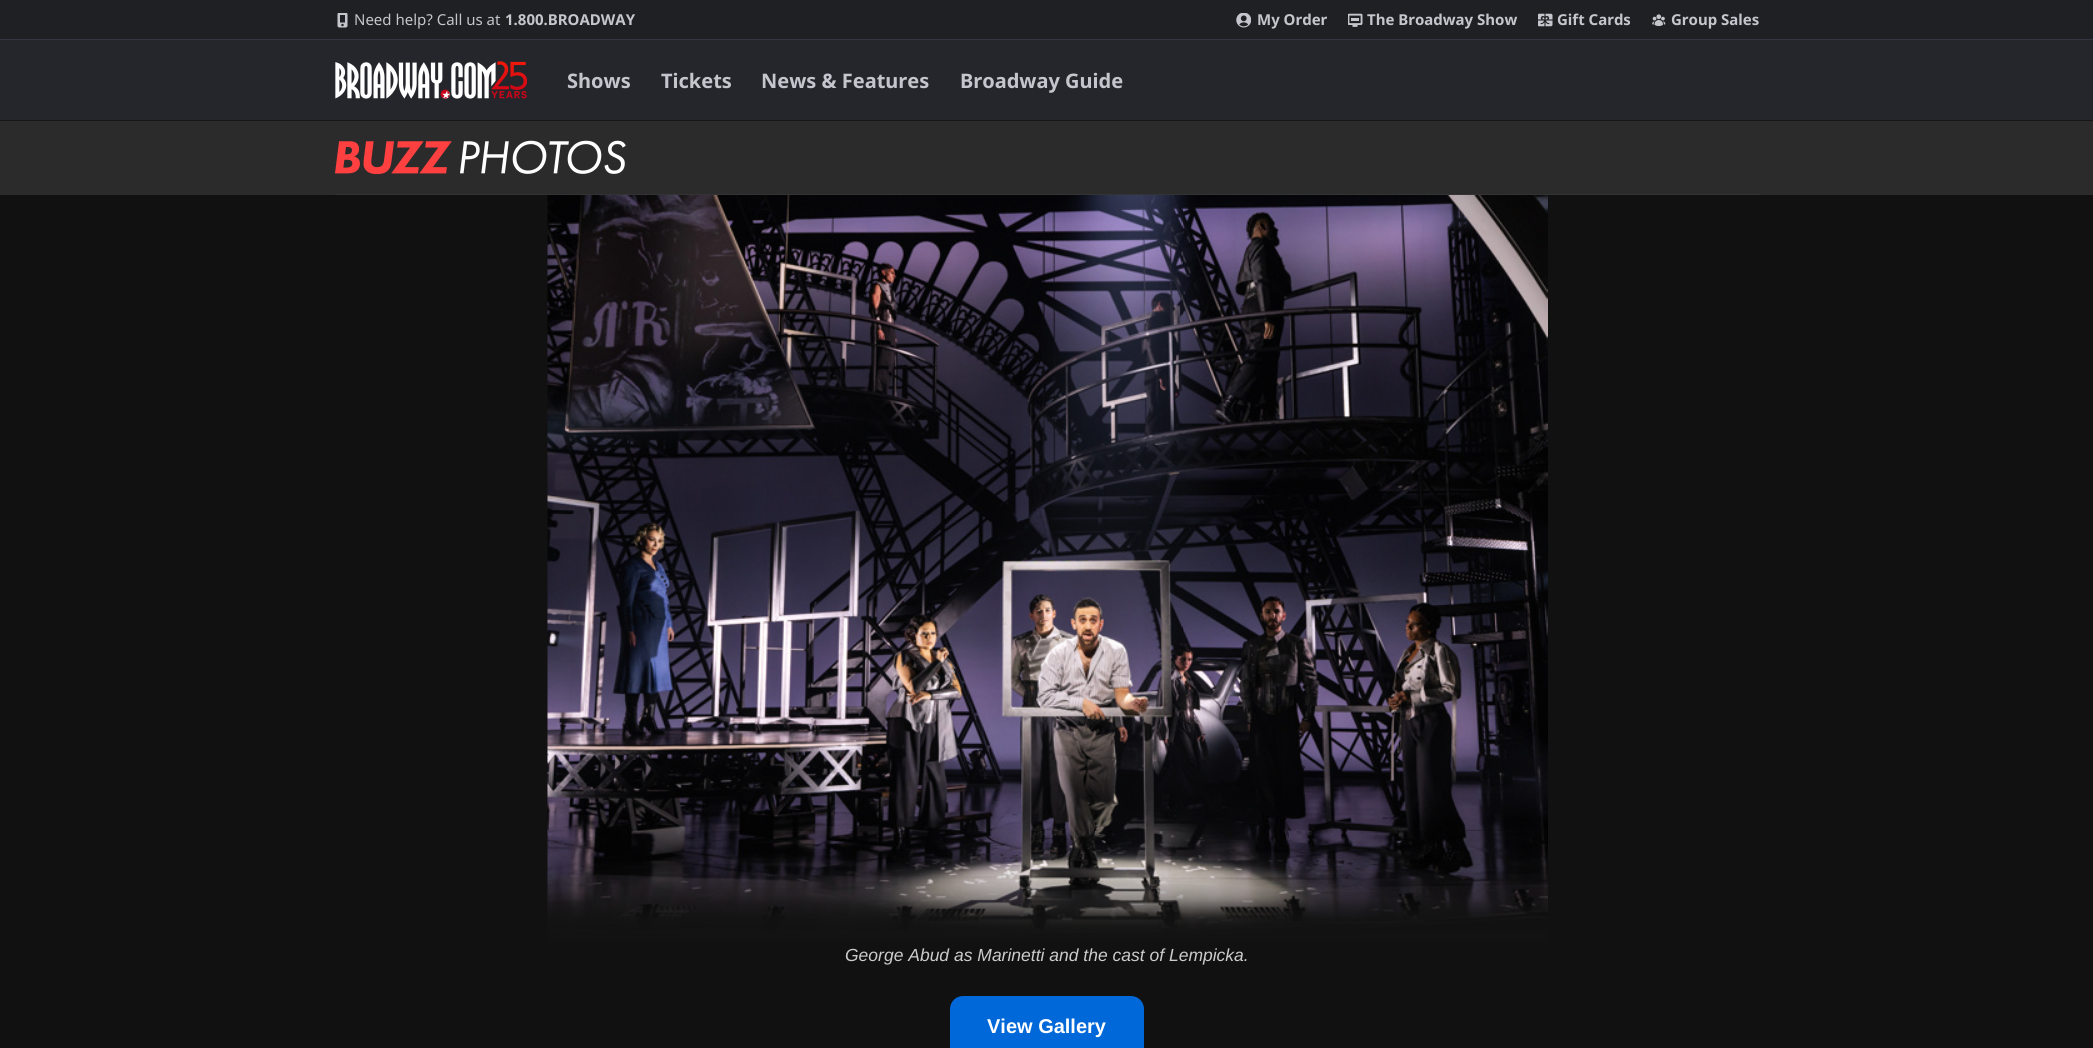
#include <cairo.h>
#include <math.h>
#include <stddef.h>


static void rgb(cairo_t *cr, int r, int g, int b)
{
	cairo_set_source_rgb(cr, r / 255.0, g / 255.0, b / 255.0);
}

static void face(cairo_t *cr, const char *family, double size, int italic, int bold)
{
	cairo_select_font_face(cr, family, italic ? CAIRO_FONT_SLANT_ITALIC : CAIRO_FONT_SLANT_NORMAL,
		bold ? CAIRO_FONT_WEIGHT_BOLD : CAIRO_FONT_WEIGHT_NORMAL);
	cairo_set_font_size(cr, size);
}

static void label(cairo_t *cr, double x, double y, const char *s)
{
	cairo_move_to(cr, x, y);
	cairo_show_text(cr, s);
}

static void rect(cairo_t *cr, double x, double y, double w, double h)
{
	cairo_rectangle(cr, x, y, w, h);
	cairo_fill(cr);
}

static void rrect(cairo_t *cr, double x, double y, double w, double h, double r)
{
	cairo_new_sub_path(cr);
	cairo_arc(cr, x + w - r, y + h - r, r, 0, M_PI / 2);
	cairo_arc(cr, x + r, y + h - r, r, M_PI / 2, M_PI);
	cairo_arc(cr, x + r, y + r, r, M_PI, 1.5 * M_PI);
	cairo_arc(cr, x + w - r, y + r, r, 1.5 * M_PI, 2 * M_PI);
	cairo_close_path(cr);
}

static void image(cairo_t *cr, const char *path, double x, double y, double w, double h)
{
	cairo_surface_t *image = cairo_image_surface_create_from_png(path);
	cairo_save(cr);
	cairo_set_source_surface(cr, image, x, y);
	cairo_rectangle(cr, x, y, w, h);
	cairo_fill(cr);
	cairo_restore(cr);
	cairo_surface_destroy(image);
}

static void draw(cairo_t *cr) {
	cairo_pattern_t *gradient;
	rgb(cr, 37, 38, 43);
	cairo_paint(cr);
	rgb(cr, 31, 32, 35);
	rect(cr, 0, 0, 2093, 39);
	rgb(cr, 52, 53, 64);
	rect(cr, 0, 39, 2093, 1);
	image(cr, "image0.png", 337, 13, 11, 15);
	face(cr, "Noto Sans", 15, 0, 0);
	rgb(cr, 197, 198, 205);
	label(cr, 354, 25, "Need help? Call us at");
	face(cr, "Noto Sans", 15, 0, 1);
	label(cr, 505, 25, "1.800.BROADWAY");
	image(cr, "image1.png", 1236, 13, 15, 15);
	label(cr, 1257, 25, "My Order");
	image(cr, "image2.png", 1348, 13, 15, 14);
	label(cr, 1367, 25, "The Broadway Show");
	image(cr, "image3.png", 1538, 13, 15, 14);
	label(cr, 1557, 25, "Gift Cards");
	image(cr, "image4.png", 1652, 14, 14, 13);
	label(cr, 1671, 25, "Group Sales");
	rgb(cr, 22, 22, 22);
	rect(cr, 0, 120, 2093, 1);
	image(cr, "image5.png", 335, 61, 192, 38);
	face(cr, "Noto Sans", 20, 0, 1);
	rgb(cr, 197, 198, 205);
	label(cr, 567, 88, "Shows");
	label(cr, 661, 88, "Tickets");
	label(cr, 761, 88, "News & Features");
	label(cr, 960, 88, "Broadway Guide");
	rgb(cr, 43, 43, 43);
	rect(cr, 0, 121, 2093, 74);
	image(cr, "image6.png", 335, 140, 291, 35);
	rgb(cr, 51, 51, 51);
	rect(cr, 335, 194, 1425, 1);
	rgb(cr, 17, 17, 17);
	rect(cr, 0, 195, 2093, 853);
	image(cr, "image7.png", 547, 195, 1001, 747);
	gradient = cairo_pattern_create_linear(1047, 946, 1047, 846);
	cairo_pattern_add_color_stop_rgba(gradient, 0, 0.071, 0.071, 0.071, 1);
	cairo_pattern_add_color_stop_rgba(gradient, 0.07, 0.071, 0.071, 0.071, 0.99);
	cairo_pattern_add_color_stop_rgba(gradient, 0.15, 0.071, 0.071, 0.071, 0.97);
	cairo_pattern_add_color_stop_rgba(gradient, 0.2, 0.071, 0.071, 0.071, 0.95);
	cairo_pattern_add_color_stop_rgba(gradient, 0.23, 0.071, 0.071, 0.071, 0.93);
	cairo_pattern_add_color_stop_rgba(gradient, 0.25, 0.071, 0.071, 0.071, 0.91);
	cairo_pattern_add_color_stop_rgba(gradient, 0.28, 0.071, 0.071, 0.071, 0.88);
	cairo_pattern_add_color_stop_rgba(gradient, 0.31, 0.071, 0.071, 0.071, 0.8);
	cairo_pattern_add_color_stop_rgba(gradient, 0.35, 0.071, 0.071, 0.071, 0.69);
	cairo_pattern_add_color_stop_rgba(gradient, 0.4, 0.071, 0.071, 0.071, 0.55);
	cairo_pattern_add_color_stop_rgba(gradient, 0.43, 0.071, 0.071, 0.071, 0.48);
	cairo_pattern_add_color_stop_rgba(gradient, 0.45, 0.071, 0.071, 0.071, 0.42);
	cairo_pattern_add_color_stop_rgba(gradient, 0.48, 0.071, 0.071, 0.071, 0.36);
	cairo_pattern_add_color_stop_rgba(gradient, 0.49, 0.071, 0.071, 0.071, 0.34);
	cairo_pattern_add_color_stop_rgba(gradient, 0.55, 0.071, 0.071, 0.071, 0.26);
	cairo_pattern_add_color_stop_rgba(gradient, 0.58, 0.071, 0.071, 0.071, 0.22);
	cairo_pattern_add_color_stop_rgba(gradient, 0.65, 0.071, 0.071, 0.071, 0.15);
	cairo_pattern_add_color_stop_rgba(gradient, 0.72, 0.071, 0.071, 0.071, 0.1);
	cairo_pattern_add_color_stop_rgba(gradient, 0.78, 0.071, 0.071, 0.071, 0.06);
	cairo_pattern_add_color_stop_rgba(gradient, 0.85, 0.071, 0.071, 0.071, 0.01);
	cairo_pattern_add_color_stop_rgba(gradient, 1, 0.071, 0.071, 0.071, 0);
	cairo_set_source(cr, gradient);
	cairo_pattern_destroy(gradient);
	rect(cr, 547, 863, 1001, 79);
	face(cr, "Liberation Sans", 17.5, 1, 0);
	rgb(cr, 204, 204, 204);
	label(cr, 845, 961, "George Abud as Marinetti and the cast of Lempicka.");
	rgb(cr, 0, 104, 217);
	rrect(cr, 950, 996, 194, 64, 13);
	cairo_fill(cr);
	face(cr, "Liberation Sans", 20, 0, 1);
	rgb(cr, 255, 255, 255);
	label(cr, 987, 1033, "View Gallery");
}

int main(void) {
	cairo_surface_t *surface = cairo_image_surface_create(CAIRO_FORMAT_RGB24, 2093, 1048);
	cairo_t *cr = cairo_create(surface);
	cairo_font_options_t *options = cairo_font_options_create();
	cairo_font_options_set_hint_metrics(options, CAIRO_HINT_METRICS_OFF);
	cairo_font_options_set_hint_style(options, CAIRO_HINT_STYLE_NONE);
	cairo_set_font_options(cr, options);
	cairo_set_miter_limit(cr, 4);
	draw(cr);
	cairo_surface_write_to_png(surface, "render.png");
	cairo_font_options_destroy(options);
	cairo_destroy(cr);
	cairo_surface_destroy(surface);
	return 0;
}
